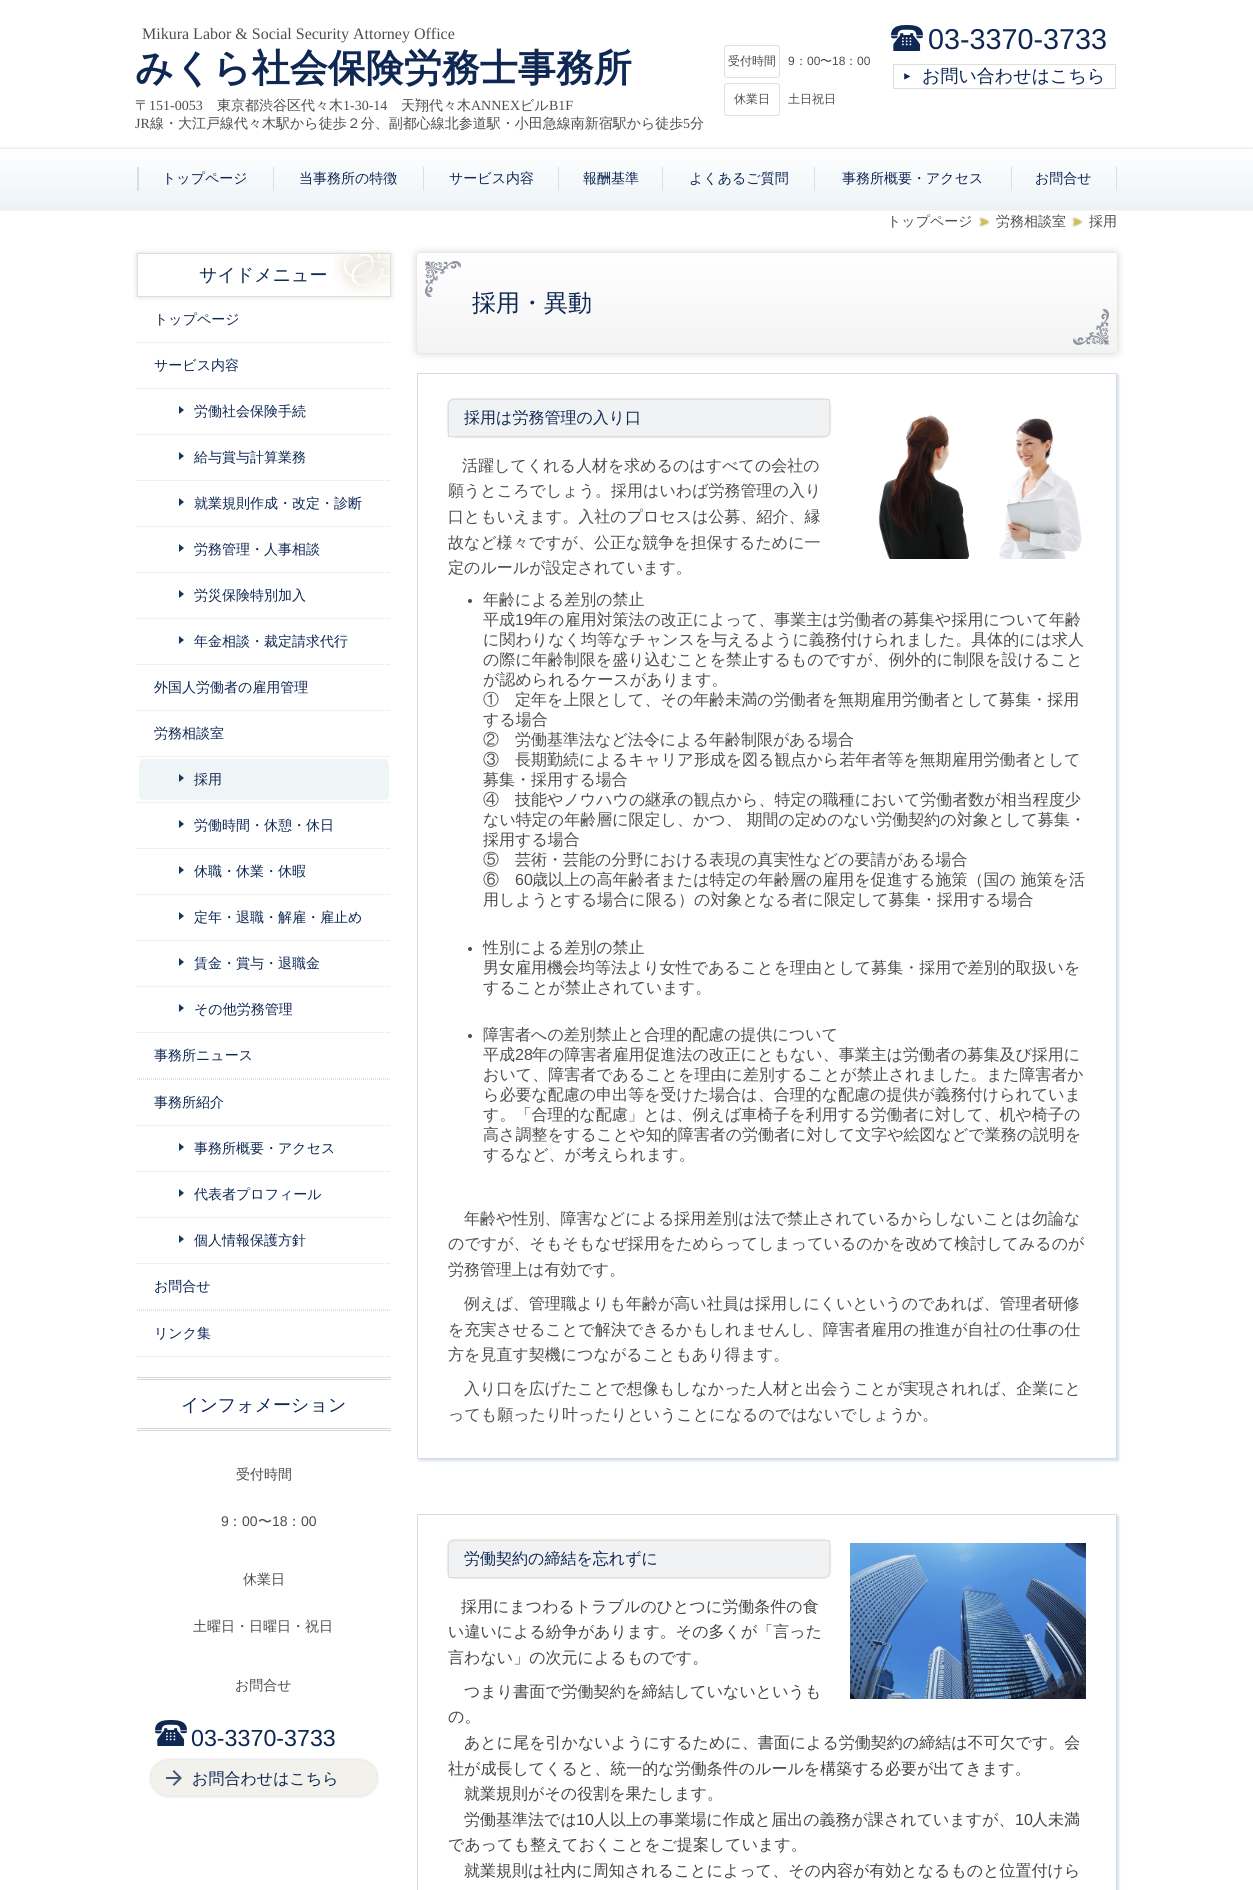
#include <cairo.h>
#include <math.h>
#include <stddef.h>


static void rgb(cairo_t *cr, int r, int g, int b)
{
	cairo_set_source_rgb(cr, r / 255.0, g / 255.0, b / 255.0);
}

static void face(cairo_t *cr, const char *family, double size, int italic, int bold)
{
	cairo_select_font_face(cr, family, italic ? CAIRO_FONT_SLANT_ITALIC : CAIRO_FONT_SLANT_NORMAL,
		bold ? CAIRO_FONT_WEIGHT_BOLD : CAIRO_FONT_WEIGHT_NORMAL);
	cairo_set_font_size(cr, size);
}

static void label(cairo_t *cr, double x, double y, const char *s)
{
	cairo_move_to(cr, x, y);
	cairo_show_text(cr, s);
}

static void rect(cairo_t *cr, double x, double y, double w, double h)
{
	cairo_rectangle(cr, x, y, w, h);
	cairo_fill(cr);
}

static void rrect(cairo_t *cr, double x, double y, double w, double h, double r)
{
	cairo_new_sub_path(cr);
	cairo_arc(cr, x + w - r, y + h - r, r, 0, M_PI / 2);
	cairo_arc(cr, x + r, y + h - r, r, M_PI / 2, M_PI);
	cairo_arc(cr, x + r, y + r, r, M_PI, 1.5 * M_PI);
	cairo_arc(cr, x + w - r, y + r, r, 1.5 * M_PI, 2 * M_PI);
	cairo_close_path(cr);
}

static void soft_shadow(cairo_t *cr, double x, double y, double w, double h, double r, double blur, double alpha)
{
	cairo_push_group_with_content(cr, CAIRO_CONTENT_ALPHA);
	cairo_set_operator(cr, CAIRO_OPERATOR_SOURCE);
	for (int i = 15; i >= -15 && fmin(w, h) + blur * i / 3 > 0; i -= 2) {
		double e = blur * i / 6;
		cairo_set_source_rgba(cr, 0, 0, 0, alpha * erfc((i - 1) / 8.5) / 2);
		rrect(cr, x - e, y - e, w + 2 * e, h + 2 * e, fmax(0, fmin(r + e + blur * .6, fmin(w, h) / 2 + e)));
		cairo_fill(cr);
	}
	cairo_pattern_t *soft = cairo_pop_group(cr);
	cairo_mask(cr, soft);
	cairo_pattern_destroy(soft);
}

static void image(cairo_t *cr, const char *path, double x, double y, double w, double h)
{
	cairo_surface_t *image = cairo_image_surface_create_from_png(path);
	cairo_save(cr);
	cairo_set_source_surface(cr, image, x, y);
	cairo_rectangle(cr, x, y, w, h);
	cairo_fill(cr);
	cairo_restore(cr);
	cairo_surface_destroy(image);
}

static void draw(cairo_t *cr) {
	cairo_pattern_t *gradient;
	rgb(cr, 255, 255, 255);
	cairo_paint(cr);
	face(cr, "Liberation Serif", 16, 0, 0);
	rgb(cr, 77, 77, 77);
	label(cr, 142, 39, "Mikura Labor & Social Security Attorney Office");
	face(cr, "WenQuanYi Zen Hei", 38, 0, 1);
	rgb(cr, 14, 39, 83);
	label(cr, 135, 81, "みくら社会保険労務士事務所");
	face(cr, "WenQuanYi Zen Hei Medium", 14, 0, 0);
	rgb(cr, 77, 77, 77);
	label(cr, 135, 110, "〒");
	face(cr, "Liberation Serif", 14, 0, 0);
	label(cr, 149, 110, "151-0053");
	face(cr, "WenQuanYi Zen Hei Medium", 14, 0, 0);
	label(cr, 217, 110, "東京都渋谷区代々木");
	face(cr, "Liberation Serif", 14, 0, 0);
	label(cr, 343, 110, "1-30-14");
	face(cr, "WenQuanYi Zen Hei Medium", 14, 0, 0);
	label(cr, 401, 110, "天翔代々木");
	face(cr, "Liberation Serif", 14, 0, 0);
	label(cr, 471, 110, "ANNEX");
	face(cr, "WenQuanYi Zen Hei Medium", 14, 0, 0);
	label(cr, 520, 110, "ビル");
	face(cr, "Liberation Serif", 14, 0, 0);
	label(cr, 549, 110, "B1F");
	label(cr, 135, 128, "JR");
	face(cr, "WenQuanYi Zen Hei Medium", 14, 0, 0);
	label(cr, 150, 128, "線・大江戸線代々木駅から徒歩２分、副都心線北参道駅・小田急線南新宿駅から徒歩");
	face(cr, "Liberation Serif", 14, 0, 0);
	label(cr, 683, 128, "5");
	face(cr, "WenQuanYi Zen Hei Medium", 14, 0, 0);
	label(cr, 690, 128, "分");
	rrect(cr, 724.5, 45.5, 55, 32, 2.5);
	rgb(cr, 222, 222, 222);
	cairo_set_line_width(cr, 1);
	cairo_stroke(cr);
	face(cr, "WenQuanYi Zen Hei Medium", 12, 0, 0);
	rgb(cr, 77, 77, 77);
	label(cr, 728, 65, "受付時間");
	face(cr, "Liberation Sans", 12, 0, 0);
	label(cr, 788, 65, "9");
	face(cr, "WenQuanYi Zen Hei Medium", 12, 0, 0);
	label(cr, 795, 65, "：");
	face(cr, "Liberation Sans", 12, 0, 0);
	label(cr, 807, 65, "00");
	face(cr, "WenQuanYi Zen Hei Medium", 12, 0, 0);
	label(cr, 820, 65, "〜");
	face(cr, "Liberation Sans", 12, 0, 0);
	label(cr, 832, 65, "18");
	face(cr, "WenQuanYi Zen Hei Medium", 12, 0, 0);
	label(cr, 845, 65, "：");
	face(cr, "Liberation Sans", 12, 0, 0);
	label(cr, 857, 65, "00");
	rrect(cr, 724.5, 83.5, 55, 32, 2.5);
	rgb(cr, 222, 222, 222);
	cairo_stroke(cr);
	face(cr, "WenQuanYi Zen Hei Medium", 12, 0, 0);
	rgb(cr, 77, 77, 77);
	label(cr, 734, 103, "休業日");
	label(cr, 788, 103, "土日祝日");
	image(cr, "image0.png", 891, 25, 32, 26);
	face(cr, "Liberation Sans", 28.75, 0, 0);
	rgb(cr, 14, 39, 83);
	label(cr, 928, 49, "03-3370-3733");
	cairo_rectangle(cr, 893.5, 64.5, 222, 24);
	rgb(cr, 222, 222, 222);
	cairo_stroke(cr);
	image(cr, "image1.png", 904, 73, 7, 7);
	face(cr, "WenQuanYi Zen Hei Medium", 18, 0, 0);
	rgb(cr, 14, 39, 83);
	label(cr, 922, 82, "お問い合わせはこちら");
	rgb(cr, 206, 213, 216);
	soft_shadow(cr, 0, 149, 1253, 60, 0, 1.5, 1);
	gradient = cairo_pattern_create_linear(627, 149, 627, 209);
	cairo_pattern_add_color_stop_rgba(gradient, 0, 1, 1, 1, 1);
	cairo_pattern_add_color_stop_rgba(gradient, 1, 0.925, 0.953, 0.969, 1);
	cairo_set_source(cr, gradient);
	cairo_pattern_destroy(gradient);
	rect(cr, 0, 149, 1253, 60);
	rgb(cr, 218, 223, 228);
	rect(cr, 137, 167, 2, 24);
	rect(cr, 273, 167, 1, 24);
	face(cr, "WenQuanYi Zen Hei Medium", 14, 0, 0);
	rgb(cr, 14, 39, 83);
	label(cr, 162, 183, "トップページ");
	rgb(cr, 218, 223, 228);
	rect(cr, 423, 167, 1, 24);
	rgb(cr, 14, 39, 83);
	label(cr, 299, 183, "当事務所の特徴");
	rgb(cr, 218, 223, 228);
	rect(cr, 558, 167, 1, 24);
	rgb(cr, 14, 39, 83);
	label(cr, 449, 183, "サービス内容");
	rgb(cr, 218, 223, 228);
	rect(cr, 662, 167, 1, 24);
	rgb(cr, 14, 39, 83);
	label(cr, 583, 183, "報酬基準");
	rgb(cr, 218, 223, 228);
	rect(cr, 814, 167, 1, 24);
	rgb(cr, 14, 39, 83);
	label(cr, 689, 183, "よくあるご質問");
	rgb(cr, 218, 223, 228);
	rect(cr, 1011, 167, 1, 24);
	rgb(cr, 14, 39, 83);
	label(cr, 842, 183, "事務所概要・アクセス");
	rgb(cr, 218, 223, 228);
	rect(cr, 1116, 167, 1, 24);
	rgb(cr, 14, 39, 83);
	label(cr, 1035, 183, "お問合せ");
	rgb(cr, 77, 77, 77);
	label(cr, 887, 226, "トップページ");
	image(cr, "image2.png", 978, 216, 13, 12);
	label(cr, 996, 226, "労務相談室");
	image(cr, "image2.png", 1071, 216, 13, 12);
	label(cr, 1089, 226, "採用");
	cairo_save(cr);
	cairo_set_fill_rule(cr, CAIRO_FILL_RULE_EVEN_ODD);
	cairo_new_path(cr);
	cairo_move_to(cr, 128, 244);
	cairo_line_to(cr, 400, 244);
	cairo_line_to(cr, 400, 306);
	cairo_line_to(cr, 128, 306);
	cairo_close_path(cr);
	cairo_move_to(cr, 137, 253);
	cairo_line_to(cr, 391, 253);
	cairo_line_to(cr, 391, 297);
	cairo_line_to(cr, 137, 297);
	cairo_close_path(cr);
	cairo_clip(cr);
	rgb(cr, 221, 221, 221);
	soft_shadow(cr, 137, 253, 254, 44, 0, 2.5, 1);
	cairo_restore(cr);
	image(cr, "image3.png", 334, 254, 56, 41);
	cairo_rectangle(cr, 137.5, 253.5, 253, 43);
	rgb(cr, 227, 221, 210);
	cairo_stroke(cr);
	face(cr, "WenQuanYi Zen Hei Medium", 18, 0, 0);
	rgb(cr, 14, 39, 83);
	label(cr, 199, 281, "サイドメニュー");
	cairo_new_path(cr);
	cairo_move_to(cr, 137, 342.5);
	cairo_line_to(cr, 391, 342.5);
	rgb(cr, 227, 227, 227);
	cairo_set_dash(cr, (double[]){1, 1}, 2, 0);
	cairo_stroke(cr);
	face(cr, "WenQuanYi Zen Hei Medium", 14, 0, 0);
	rgb(cr, 14, 39, 83);
	label(cr, 154, 324, "トップページ");
	cairo_new_path(cr);
	cairo_move_to(cr, 137, 664.5);
	cairo_line_to(cr, 391, 664.5);
	rgb(cr, 227, 227, 227);
	cairo_stroke(cr);
	rgb(cr, 14, 39, 83);
	label(cr, 154, 370, "サービス内容");
	cairo_new_path(cr);
	cairo_move_to(cr, 137, 388.5);
	cairo_line_to(cr, 391, 388.5);
	rgb(cr, 227, 227, 227);
	cairo_stroke(cr);
	cairo_new_path(cr);
	cairo_move_to(cr, 137, 434.5);
	cairo_line_to(cr, 391, 434.5);
	cairo_stroke(cr);
	image(cr, "image4.png", 179, 406, 5, 8);
	rgb(cr, 14, 39, 83);
	label(cr, 194, 416, "労働社会保険手続");
	cairo_new_path(cr);
	cairo_move_to(cr, 137, 480.5);
	cairo_line_to(cr, 391, 480.5);
	rgb(cr, 227, 227, 227);
	cairo_stroke(cr);
	image(cr, "image4.png", 179, 452, 5, 8);
	rgb(cr, 14, 39, 83);
	label(cr, 194, 462, "給与賞与計算業務");
	cairo_new_path(cr);
	cairo_move_to(cr, 137, 526.5);
	cairo_line_to(cr, 391, 526.5);
	rgb(cr, 227, 227, 227);
	cairo_stroke(cr);
	image(cr, "image4.png", 179, 498, 5, 8);
	rgb(cr, 14, 39, 83);
	label(cr, 194, 508, "就業規則作成・改定・診断");
	cairo_new_path(cr);
	cairo_move_to(cr, 137, 572.5);
	cairo_line_to(cr, 391, 572.5);
	rgb(cr, 227, 227, 227);
	cairo_stroke(cr);
	image(cr, "image4.png", 179, 544, 5, 8);
	rgb(cr, 14, 39, 83);
	label(cr, 194, 554, "労務管理・人事相談");
	cairo_new_path(cr);
	cairo_move_to(cr, 137, 618.5);
	cairo_line_to(cr, 391, 618.5);
	rgb(cr, 227, 227, 227);
	cairo_stroke(cr);
	image(cr, "image4.png", 179, 590, 5, 8);
	rgb(cr, 14, 39, 83);
	label(cr, 194, 600, "労災保険特別加入");
	image(cr, "image4.png", 179, 636, 5, 8);
	label(cr, 194, 646, "年金相談・裁定請求代行");
	cairo_new_path(cr);
	cairo_move_to(cr, 137, 710.5);
	cairo_line_to(cr, 391, 710.5);
	rgb(cr, 227, 227, 227);
	cairo_stroke(cr);
	rgb(cr, 14, 39, 83);
	label(cr, 154, 692, "外国人労働者の雇用管理");
	cairo_new_path(cr);
	cairo_move_to(cr, 137, 1032.5);
	cairo_line_to(cr, 391, 1032.5);
	rgb(cr, 227, 227, 227);
	cairo_stroke(cr);
	rgb(cr, 14, 39, 83);
	label(cr, 154, 738, "労務相談室");
	cairo_new_path(cr);
	cairo_move_to(cr, 137, 756.5);
	cairo_line_to(cr, 391, 756.5);
	rgb(cr, 227, 227, 227);
	cairo_stroke(cr);
	cairo_new_path(cr);
	cairo_move_to(cr, 137, 802.5);
	cairo_line_to(cr, 391, 802.5);
	cairo_stroke(cr);
	rgb(cr, 239, 244, 246);
	rrect(cr, 139, 759, 250, 41, 5);
	cairo_fill(cr);
	image(cr, "image5.png", 179, 774, 5, 8);
	rgb(cr, 14, 39, 83);
	label(cr, 194, 784, "採用");
	cairo_new_path(cr);
	cairo_move_to(cr, 137, 848.5);
	cairo_line_to(cr, 391, 848.5);
	rgb(cr, 227, 227, 227);
	cairo_stroke(cr);
	image(cr, "image4.png", 179, 820, 5, 8);
	rgb(cr, 14, 39, 83);
	label(cr, 194, 830, "労働時間・休憩・休日");
	cairo_new_path(cr);
	cairo_move_to(cr, 137, 894.5);
	cairo_line_to(cr, 391, 894.5);
	rgb(cr, 227, 227, 227);
	cairo_stroke(cr);
	image(cr, "image4.png", 179, 866, 5, 8);
	rgb(cr, 14, 39, 83);
	label(cr, 194, 876, "休職・休業・休暇");
	cairo_new_path(cr);
	cairo_move_to(cr, 137, 940.5);
	cairo_line_to(cr, 391, 940.5);
	rgb(cr, 227, 227, 227);
	cairo_stroke(cr);
	image(cr, "image4.png", 179, 912, 5, 8);
	rgb(cr, 14, 39, 83);
	label(cr, 194, 922, "定年・退職・解雇・雇止め");
	cairo_new_path(cr);
	cairo_move_to(cr, 137, 986.5);
	cairo_line_to(cr, 391, 986.5);
	rgb(cr, 227, 227, 227);
	cairo_stroke(cr);
	image(cr, "image4.png", 179, 958, 5, 8);
	rgb(cr, 14, 39, 83);
	label(cr, 194, 968, "賃金・賞与・退職金");
	image(cr, "image4.png", 179, 1004, 5, 8);
	label(cr, 194, 1014, "その他労務管理");
	cairo_new_path(cr);
	cairo_move_to(cr, 137, 1079.5);
	cairo_line_to(cr, 391, 1079.5);
	rgb(cr, 227, 227, 227);
	cairo_stroke(cr);
	rgb(cr, 14, 39, 83);
	label(cr, 154, 1060, "事務所ニュース");
	cairo_new_path(cr);
	cairo_move_to(cr, 137, 1078.5);
	cairo_line_to(cr, 391, 1078.5);
	rgb(cr, 227, 227, 227);
	cairo_stroke(cr);
	cairo_new_path(cr);
	cairo_move_to(cr, 137, 1263.5);
	cairo_line_to(cr, 391, 1263.5);
	cairo_stroke(cr);
	rgb(cr, 14, 39, 83);
	label(cr, 154, 1107, "事務所紹介");
	cairo_new_path(cr);
	cairo_move_to(cr, 137, 1125.5);
	cairo_line_to(cr, 391, 1125.5);
	rgb(cr, 227, 227, 227);
	cairo_stroke(cr);
	cairo_new_path(cr);
	cairo_move_to(cr, 137, 1171.5);
	cairo_line_to(cr, 391, 1171.5);
	cairo_stroke(cr);
	image(cr, "image4.png", 179, 1143, 5, 8);
	rgb(cr, 14, 39, 83);
	label(cr, 194, 1153, "事務所概要・アクセス");
	cairo_new_path(cr);
	cairo_move_to(cr, 137, 1217.5);
	cairo_line_to(cr, 391, 1217.5);
	rgb(cr, 227, 227, 227);
	cairo_stroke(cr);
	image(cr, "image4.png", 179, 1189, 5, 8);
	rgb(cr, 14, 39, 83);
	label(cr, 194, 1199, "代表者プロフィール");
	image(cr, "image4.png", 179, 1235, 5, 8);
	label(cr, 194, 1245, "個人情報保護方針");
	cairo_new_path(cr);
	cairo_move_to(cr, 137, 1310.5);
	cairo_line_to(cr, 391, 1310.5);
	rgb(cr, 227, 227, 227);
	cairo_stroke(cr);
	rgb(cr, 14, 39, 83);
	label(cr, 154, 1291, "お問合せ");
	cairo_new_path(cr);
	cairo_move_to(cr, 137, 1309.5);
	cairo_line_to(cr, 391, 1309.5);
	rgb(cr, 227, 227, 227);
	cairo_stroke(cr);
	cairo_new_path(cr);
	cairo_move_to(cr, 137, 1356.5);
	cairo_line_to(cr, 391, 1356.5);
	cairo_stroke(cr);
	rgb(cr, 14, 39, 83);
	label(cr, 154, 1338, "リンク集");
	rgb(cr, 218, 215, 207);
	rect(cr, 137, 1377, 254, 1);
	rect(cr, 137, 1379, 254, 1);
	rect(cr, 137, 1428, 254, 1);
	rect(cr, 137, 1430, 254, 1);
	face(cr, "WenQuanYi Zen Hei Medium", 18, 0, 0);
	rgb(cr, 14, 39, 83);
	label(cr, 181, 1411, "インフォメーション");
	face(cr, "WenQuanYi Zen Hei Medium", 14, 0, 0);
	rgb(cr, 77, 77, 77);
	label(cr, 236, 1479, "受付時間");
	face(cr, "Liberation Sans", 14, 0, 0);
	label(cr, 221, 1526, "9");
	face(cr, "WenQuanYi Zen Hei Medium", 14, 0, 0);
	label(cr, 228, 1526, "：");
	face(cr, "Liberation Sans", 14, 0, 0);
	label(cr, 242, 1526, "00");
	face(cr, "WenQuanYi Zen Hei Medium", 14, 0, 0);
	label(cr, 258, 1526, "〜");
	face(cr, "Liberation Sans", 14, 0, 0);
	label(cr, 272, 1526, "18");
	face(cr, "WenQuanYi Zen Hei Medium", 14, 0, 0);
	label(cr, 287, 1526, "：");
	face(cr, "Liberation Sans", 14, 0, 0);
	label(cr, 301, 1526, "00");
	face(cr, "WenQuanYi Zen Hei Medium", 14, 0, 0);
	label(cr, 243, 1584, "休業日");
	label(cr, 193, 1631, "土曜日・日曜日・祝日");
	label(cr, 235, 1690, "お問合せ");
	image(cr, "image0.png", 155, 1720, 32, 26);
	face(cr, "Liberation Sans", 23.25, 0, 0);
	rgb(cr, 14, 39, 83);
	label(cr, 191, 1746, "03-3370-3733");
	rgb(cr, 204, 204, 204);
	soft_shadow(cr, 151, 1760, 226, 36, 18, 1.5, 1);
	rgb(cr, 242, 241, 236);
	rrect(cr, 151, 1760, 226, 36, 18);
	cairo_fill(cr);
	image(cr, "image6.png", 166, 1770, 16, 16);
	face(cr, "WenQuanYi Zen Hei Medium", 16, 0, 0);
	rgb(cr, 14, 39, 83);
	label(cr, 192, 1784, "お問合わせはこちら");
	rgb(cr, 210, 203, 203);
	soft_shadow(cr, 417, 253, 700, 100, 3, 4, 1);
	gradient = cairo_pattern_create_linear(767, 253, 767, 353);
	cairo_pattern_add_color_stop_rgba(gradient, 0, 1, 1, 1, 1);
	cairo_pattern_add_color_stop_rgba(gradient, 1, 0.953, 0.953, 0.953, 1);
	cairo_set_source(cr, gradient);
	cairo_pattern_destroy(gradient);
	rrect(cr, 417, 253, 700, 100, 3);
	cairo_fill(cr);
	image(cr, "image7.png", 425, 261, 684, 84);
	face(cr, "WenQuanYi Zen Hei Medium", 24, 0, 0);
	rgb(cr, 14, 39, 83);
	label(cr, 472, 311, "採用・異動");
	cairo_save(cr);
	cairo_set_fill_rule(cr, CAIRO_FILL_RULE_EVEN_ODD);
	cairo_new_path(cr);
	cairo_move_to(cr, 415, 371);
	cairo_line_to(cr, 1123, 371);
	cairo_line_to(cr, 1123, 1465);
	cairo_line_to(cr, 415, 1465);
	cairo_close_path(cr);
	cairo_move_to(cr, 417, 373);
	cairo_line_to(cr, 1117, 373);
	cairo_line_to(cr, 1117, 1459);
	cairo_line_to(cr, 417, 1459);
	cairo_close_path(cr);
	cairo_clip(cr);
	rgb(cr, 219, 226, 235);
	soft_shadow(cr, 419, 375, 700, 1086, 0, 1, 1);
	cairo_restore(cr);
	cairo_rectangle(cr, 417.5, 373.5, 699, 1085);
	rgb(cr, 212, 220, 231);
	cairo_set_dash(cr, NULL, 0, 0);
	cairo_stroke(cr);
	rgb(cr, 203, 200, 178);
	soft_shadow(cr, 448, 399, 382, 38, 6, 1, 1);
	rgb(cr, 241, 242, 244);
	cairo_new_path(cr);
	cairo_move_to(cr, 454, 399.5);
	cairo_line_to(cr, 829.5, 399.5);
	cairo_line_to(cr, 829.5, 431);
	cairo_curve_to(cr, 829.5, 434, 827, 436.5, 824, 436.5);
	cairo_line_to(cr, 448.5, 436.5);
	cairo_line_to(cr, 448.5, 405);
	cairo_curve_to(cr, 448.5, 402, 451, 399.5, 454, 399.5);
	cairo_close_path(cr);
	cairo_fill_preserve(cr);
	rgb(cr, 220, 222, 226);
	cairo_stroke(cr);
	face(cr, "WenQuanYi Zen Hei Medium", 16, 0, 0);
	rgb(cr, 14, 39, 83);
	label(cr, 464, 423, "採用は労務管理の入り口");
	rgb(cr, 77, 77, 77);
	label(cr, 462, 471, "活躍してくれる人材を求めるのはすべての会社の");
	label(cr, 448, 496, "願うところでしょう。採用はいわば労務管理の入り");
	label(cr, 448, 522, "口ともいえます。入社のプロセスは公募、紹介、縁");
	label(cr, 448, 548, "故など様々ですが、公正な競争を担保するために一");
	label(cr, 448, 573, "定のルールが設定されています。");
	cairo_new_path(cr);
	cairo_arc(cr, 470, 601, 2, 0, 2 * M_PI);
	cairo_fill(cr);
	label(cr, 483, 605, "年齢による差別の禁止");
	label(cr, 483, 625, "平成");
	face(cr, "Liberation Sans", 16, 0, 0);
	label(cr, 515, 625, "19");
	face(cr, "WenQuanYi Zen Hei Medium", 16, 0, 0);
	label(cr, 532, 625, "年の雇用対策法の改正によって、事業主は労働者の募集や採用について年齢");
	label(cr, 483, 645, "に関わりなく均等なチャンスを与えるように義務付けられました。具体的には求人");
	label(cr, 483, 665, "の際に年齢制限を盛り込むことを禁止するものですが、例外的に制限を設けること");
	label(cr, 483, 685, "が認められるケースがあります。");
	label(cr, 483, 705, "①　定年を上限として、その年齢未満の労働者を無期雇用労働者として募集・採用");
	label(cr, 483, 725, "する場合");
	label(cr, 483, 745, "②　労働基準法など法令による年齢制限がある場合");
	label(cr, 483, 765, "③　長期勤続によるキャリア形成を図る観点から若年者等を無期雇用労働者として");
	label(cr, 483, 785, "募集・採用する場合");
	label(cr, 483, 805, "④　技能やノウハウの継承の観点から、特定の職種において労働者数が相当程度少");
	label(cr, 483, 825, "ない特定の年齢層に限定し、かつ、 期間の定めのない労働契約の対象として募集・");
	label(cr, 483, 845, "採用する場合");
	label(cr, 483, 865, "⑤　芸術・芸能の分野における表現の真実性などの要請がある場合");
	label(cr, 483, 885, "⑥");
	face(cr, "Liberation Sans", 16, 0, 0);
	label(cr, 515, 885, "60");
	face(cr, "WenQuanYi Zen Hei Medium", 16, 0, 0);
	label(cr, 532, 885, "歳以上の高年齢者または特定の年齢層の雇用を促進する施策（国の 施策を活");
	label(cr, 483, 905, "用しようとする場合に限る）の対象となる者に限定して募集・採用する場合");
	cairo_new_path(cr);
	cairo_arc(cr, 470, 949, 2, 0, 2 * M_PI);
	cairo_fill(cr);
	label(cr, 483, 953, "性別による差別の禁止");
	label(cr, 483, 973, "男女雇用機会均等法より女性であることを理由として募集・採用で差別的取扱いを");
	label(cr, 483, 993, "することが禁止されています。");
	cairo_new_path(cr);
	cairo_arc(cr, 470, 1036, 2, 0, 2 * M_PI);
	cairo_fill(cr);
	label(cr, 483, 1040, "障害者への差別禁止と合理的配慮の提供について");
	label(cr, 483, 1060, "平成");
	face(cr, "Liberation Sans", 16, 0, 0);
	label(cr, 515, 1060, "28");
	face(cr, "WenQuanYi Zen Hei Medium", 16, 0, 0);
	label(cr, 532, 1060, "年の障害者雇用促進法の改正にともない、事業主は労働者の募集及び採用に");
	label(cr, 483, 1080, "おいて、障害者であることを理由に差別することが禁止されました。また障害者か");
	label(cr, 483, 1100, "ら必要な配慮の申出等を受けた場合は、合理的な配慮の提供が義務付けられていま");
	label(cr, 483, 1120, "す。「合理的な配慮」とは、例えば車椅子を利用する労働者に対して、机や椅子の");
	label(cr, 483, 1140, "高さ調整をすることや知的障害者の労働者に対して文字や絵図などで業務の説明を");
	label(cr, 483, 1160, "するなど、が考えられます。");
	label(cr, 464, 1224, "年齢や性別、障害などによる採用差別は法で禁止されているからしないことは勿論な");
	label(cr, 448, 1249, "のですが、そもそもなぜ採用をためらってしまっているのかを改めて検討してみるのが");
	label(cr, 448, 1275, "労務管理上は有効です。");
	label(cr, 464, 1309, "例えば、管理職よりも年齢が高い社員は採用しにくいというのであれば、管理者研修");
	label(cr, 448, 1335, "を充実させることで解決できるかもしれませんし、障害者雇用の推進が自社の仕事の仕");
	label(cr, 448, 1360, "方を見直す契機につながることもあり得ます。");
	label(cr, 464, 1394, "入り口を広げたことで想像もしなかった人材と出会うことが実現されれば、企業にと");
	label(cr, 448, 1420, "っても願ったり叶ったりということになるのではないでしょうか。");
	image(cr, "image8.png", 878, 415, 204, 144);
	cairo_save(cr);
	cairo_rectangle(cr, 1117, 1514, 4, 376);
	cairo_clip(cr);
	rgb(cr, 219, 226, 235);
	soft_shadow(cr, 419, 1516, 700, 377, 0, 1, 1);
	cairo_restore(cr);
	cairo_rectangle(cr, 417.5, 1514.5, 699, 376);
	rgb(cr, 212, 220, 231);
	cairo_stroke(cr);
	image(cr, "image9.png", 850, 1543, 236, 156);
	rgb(cr, 203, 200, 178);
	soft_shadow(cr, 448, 1540, 382, 38, 6, 1, 1);
	rgb(cr, 241, 242, 244);
	cairo_new_path(cr);
	cairo_move_to(cr, 454, 1540.5);
	cairo_line_to(cr, 829.5, 1540.5);
	cairo_line_to(cr, 829.5, 1572);
	cairo_curve_to(cr, 829.5, 1575, 827, 1577.5, 824, 1577.5);
	cairo_line_to(cr, 448.5, 1577.5);
	cairo_line_to(cr, 448.5, 1546);
	cairo_curve_to(cr, 448.5, 1543, 451, 1540.5, 454, 1540.5);
	cairo_close_path(cr);
	cairo_fill_preserve(cr);
	rgb(cr, 220, 222, 226);
	cairo_stroke(cr);
	rgb(cr, 14, 39, 83);
	label(cr, 464, 1564, "労働契約の締結を忘れずに");
	rgb(cr, 68, 68, 68);
	label(cr, 461, 1612, "採用にまつわるトラブルのひとつに労働条件の食");
	label(cr, 448, 1637, "い違いによる紛争があります。その多くが「言った");
	label(cr, 448, 1663, "言わない」の次元によるものです。");
	label(cr, 464, 1697, "つまり書面で労働契約を締結していないというも");
	label(cr, 448, 1722, "の。");
	label(cr, 464, 1748, "あとに尾を引かないようにするために、書面による労働契約の締結は不可欠です。会");
	label(cr, 448, 1774, "社が成長してくると、統一的な労働条件のルールを構築する必要が出てきます。");
	label(cr, 464, 1799, "就業規則がその役割を果たします。");
	label(cr, 464, 1825, "労働基準法では");
	face(cr, "Liberation Sans", 16, 0, 0);
	label(cr, 576, 1825, "10");
	face(cr, "WenQuanYi Zen Hei Medium", 16, 0, 0);
	label(cr, 594, 1825, "人以上の事業場に作成と届出の義務が課されていますが、");
	face(cr, "Liberation Sans", 16, 0, 0);
	label(cr, 1015, 1825, "10");
	face(cr, "WenQuanYi Zen Hei Medium", 16, 0, 0);
	label(cr, 1032, 1825, "人未満");
	label(cr, 448, 1850, "であっても整えておくことをご提案しています。");
	label(cr, 464, 1876, "就業規則は社内に周知されることによって、その内容が有効となるものと位置付けら");
}

int main(void) {
	cairo_surface_t *surface = cairo_image_surface_create(CAIRO_FORMAT_RGB24, 1253, 1890);
	cairo_t *cr = cairo_create(surface);
	cairo_font_options_t *options = cairo_font_options_create();
	cairo_font_options_set_hint_metrics(options, CAIRO_HINT_METRICS_OFF);
	cairo_font_options_set_hint_style(options, CAIRO_HINT_STYLE_NONE);
	cairo_set_font_options(cr, options);
	cairo_set_miter_limit(cr, 4);
	draw(cr);
	cairo_surface_write_to_png(surface, "render.png");
	cairo_font_options_destroy(options);
	cairo_destroy(cr);
	cairo_surface_destroy(surface);
	return 0;
}
